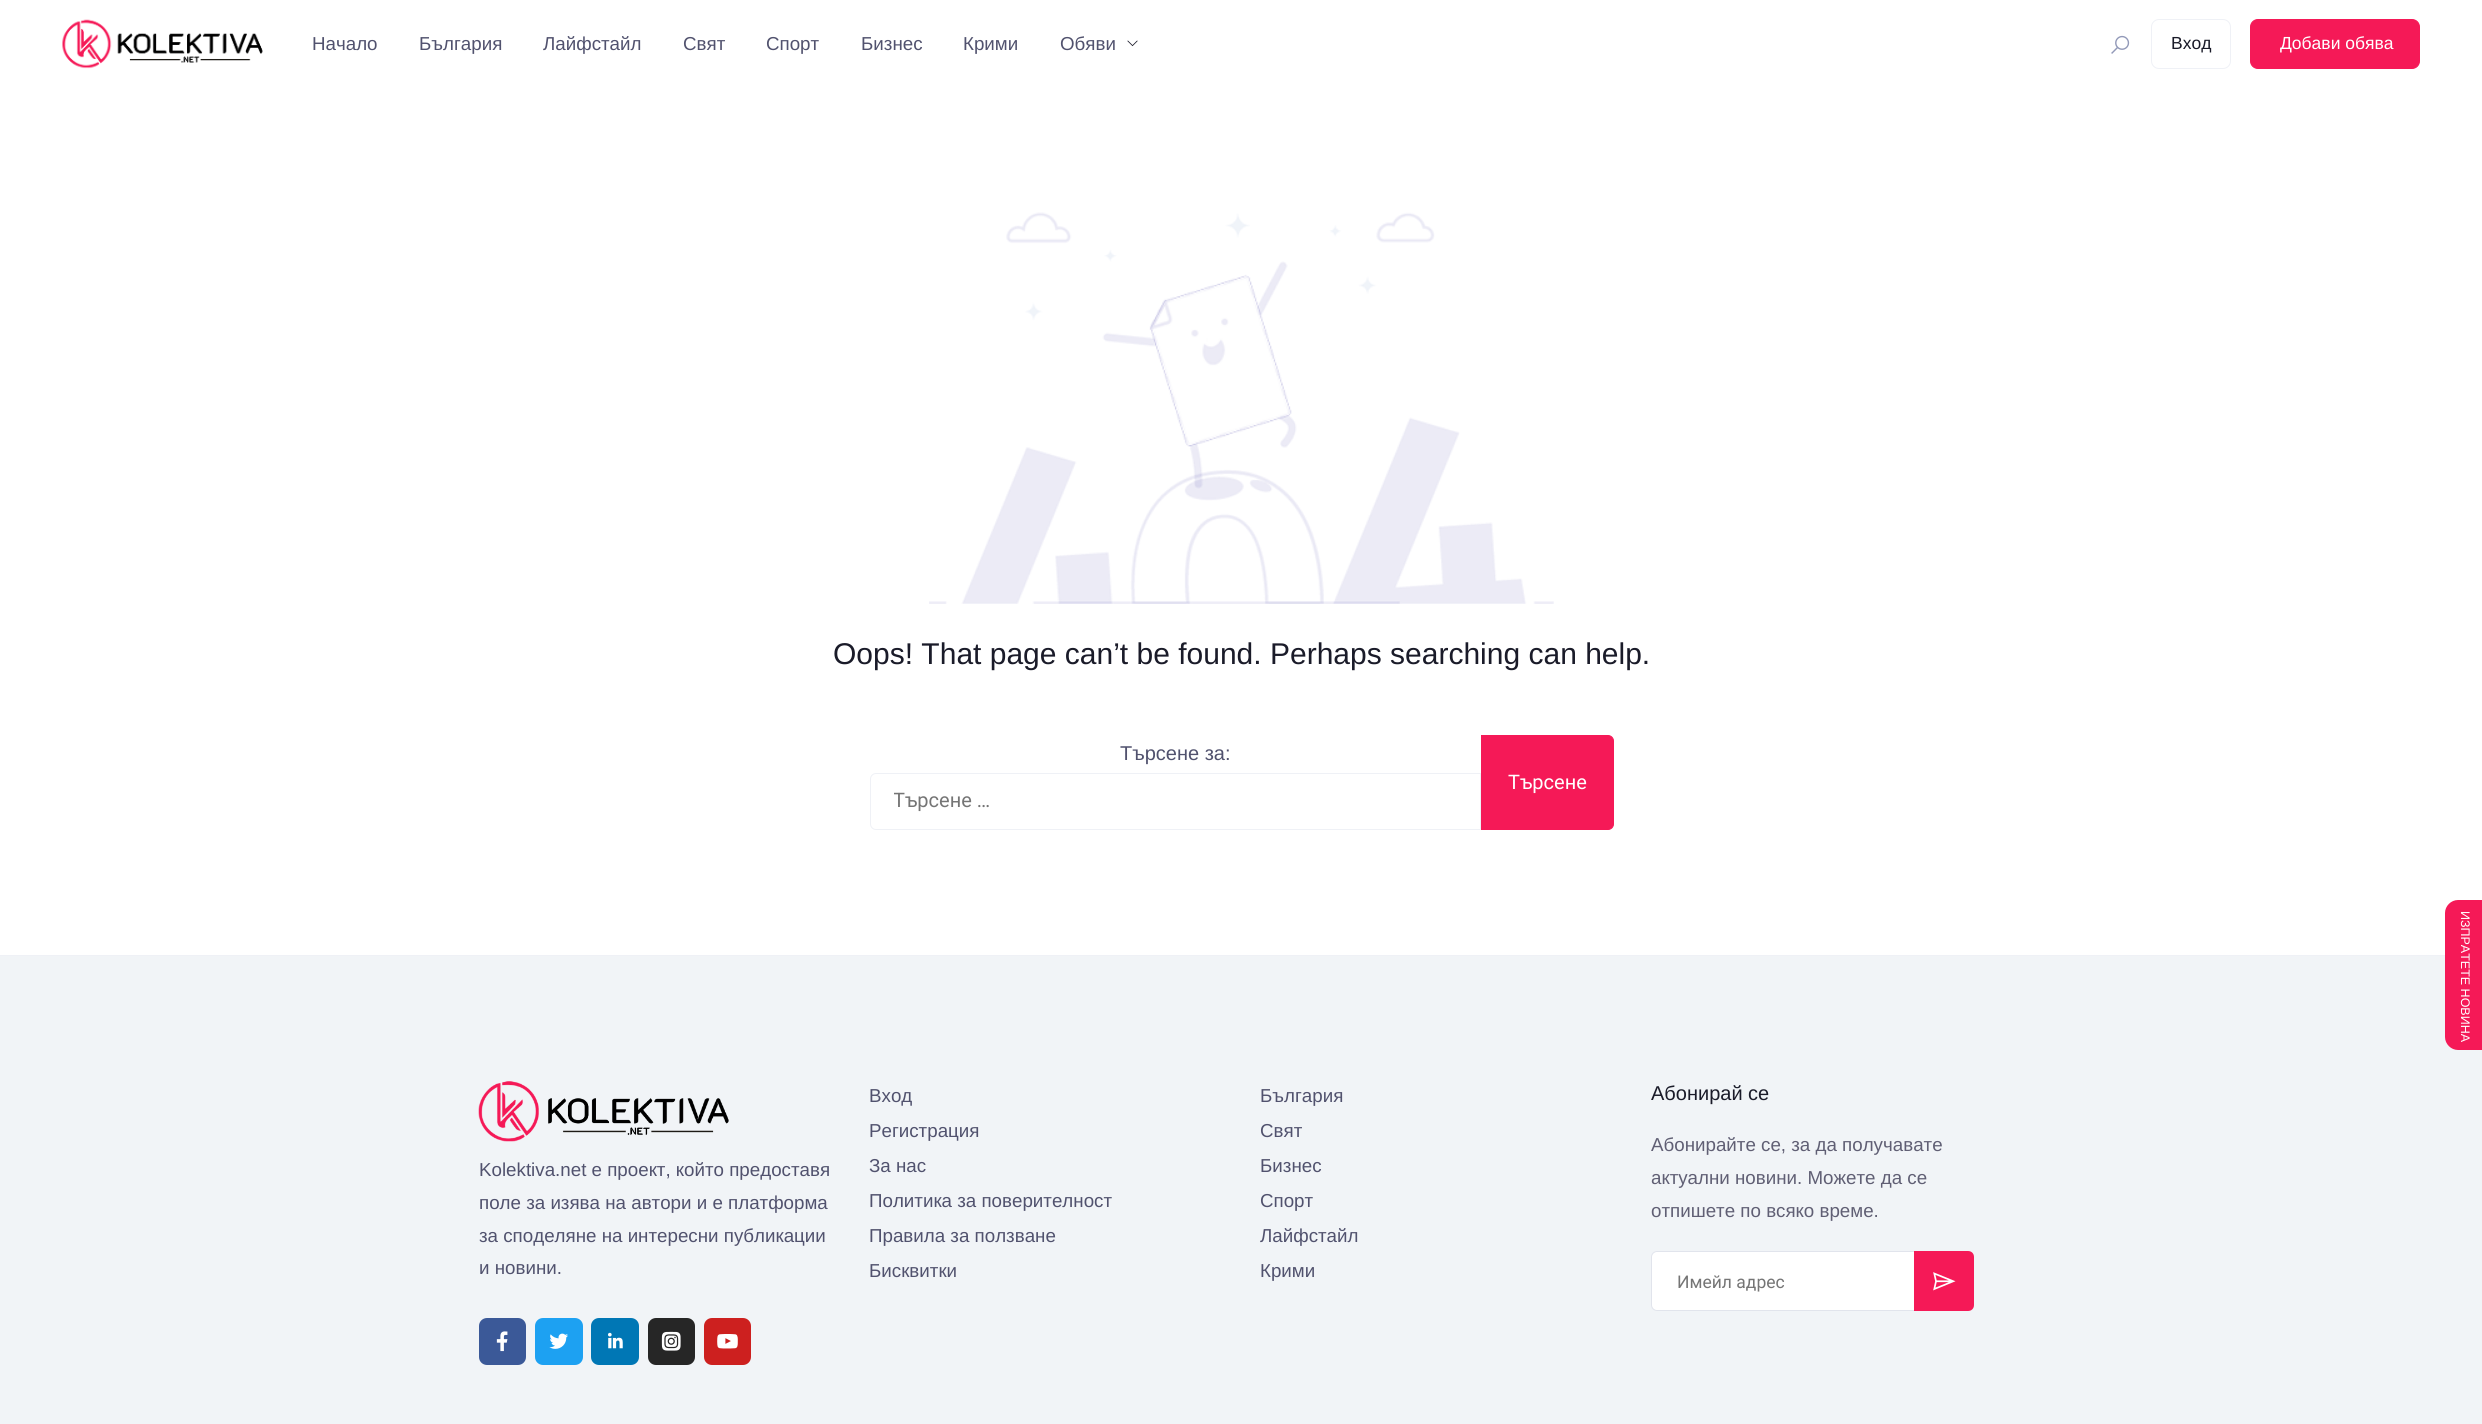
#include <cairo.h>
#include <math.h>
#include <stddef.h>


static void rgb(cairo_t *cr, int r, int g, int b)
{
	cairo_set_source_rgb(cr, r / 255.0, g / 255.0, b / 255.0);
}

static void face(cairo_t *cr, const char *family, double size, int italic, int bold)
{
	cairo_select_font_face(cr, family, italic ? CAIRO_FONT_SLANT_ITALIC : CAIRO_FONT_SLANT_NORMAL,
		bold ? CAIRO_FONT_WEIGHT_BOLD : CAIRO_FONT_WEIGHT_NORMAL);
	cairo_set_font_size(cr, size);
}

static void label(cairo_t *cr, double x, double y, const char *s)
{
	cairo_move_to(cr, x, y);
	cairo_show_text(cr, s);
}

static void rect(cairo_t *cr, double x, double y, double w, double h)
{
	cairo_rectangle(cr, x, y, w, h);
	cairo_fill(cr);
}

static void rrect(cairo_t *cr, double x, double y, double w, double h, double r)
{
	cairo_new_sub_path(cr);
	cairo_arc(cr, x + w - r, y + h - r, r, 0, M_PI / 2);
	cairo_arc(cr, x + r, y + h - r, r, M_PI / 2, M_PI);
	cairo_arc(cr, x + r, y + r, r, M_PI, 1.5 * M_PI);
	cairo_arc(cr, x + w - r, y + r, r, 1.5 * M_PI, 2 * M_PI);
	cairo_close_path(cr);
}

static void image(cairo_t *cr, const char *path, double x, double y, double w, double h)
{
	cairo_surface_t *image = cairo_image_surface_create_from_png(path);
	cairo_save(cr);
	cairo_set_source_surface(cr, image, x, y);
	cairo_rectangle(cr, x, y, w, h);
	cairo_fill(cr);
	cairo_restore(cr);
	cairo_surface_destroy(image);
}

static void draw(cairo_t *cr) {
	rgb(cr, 255, 255, 255);
	cairo_paint(cr);
	image(cr, "image0.png", 62, 19, 201, 50);
	face(cr, "Liberation Sans", 18.75, 0, 0);
	rgb(cr, 81, 82, 110);
	label(cr, 312, 50, "Начало");
	label(cr, 419, 50, "България");
	label(cr, 543, 50, "Лайфстайл");
	label(cr, 683, 50, "Свят");
	label(cr, 766, 50, "Спорт");
	label(cr, 861, 50, "Бизнес");
	label(cr, 963, 50, "Крими");
	label(cr, 1060, 50, "Обяви");
	image(cr, "image1.png", 1127, 40, 11, 7);
	image(cr, "image2.png", 2111, 35, 19, 19);
	rrect(cr, 2151.5, 19.5, 79, 49, 7.5);
	rgb(cr, 239, 241, 246);
	cairo_set_line_width(cr, 1);
	cairo_stroke(cr);
	face(cr, "Liberation Sans", 17.5, 0, 0);
	rgb(cr, 26, 27, 41);
	label(cr, 2171, 49, "Вход");
	rgb(cr, 245, 25, 87);
	rrect(cr, 2250.5, 19.5, 169, 49, 7.5);
	cairo_fill_preserve(cr);
	cairo_stroke(cr);
	rgb(cr, 255, 255, 255);
	label(cr, 2280, 49, "Добави обява");
	image(cr, "image3.png", 929, 212, 625, 392);
	face(cr, "Liberation Sans", 30, 0, 0);
	rgb(cr, 26, 27, 41);
	label(cr, 833, 664, "Oops! That page can’t be found. Perhaps searching can help.");
	face(cr, "Liberation Sans", 20, 0, 0);
	rgb(cr, 81, 82, 110);
	label(cr, 1120, 760, "Търсене за:");
	cairo_new_path(cr);
	cairo_move_to(cr, 876, 773.5);
	cairo_line_to(cr, 1480.5, 773.5);
	cairo_line_to(cr, 1480.5, 829.5);
	cairo_line_to(cr, 876, 829.5);
	cairo_curve_to(cr, 873, 829.5, 870.5, 827, 870.5, 824);
	cairo_line_to(cr, 870.5, 779);
	cairo_curve_to(cr, 870.5, 776, 873, 773.5, 876, 773.5);
	cairo_close_path(cr);
	rgb(cr, 239, 241, 246);
	cairo_stroke(cr);
	cairo_save(cr);
	cairo_rectangle(cr, 894, 789, 559, 24);
	cairo_clip(cr);
	face(cr, "Roboto", 20, 0, 0);
	rgb(cr, 117, 117, 117);
	label(cr, 893, 807, "Търсене …");
	cairo_restore(cr);
	rgb(cr, 245, 25, 87);
	cairo_new_path(cr);
	cairo_move_to(cr, 1481.5, 735.5);
	cairo_line_to(cr, 1608, 735.5);
	cairo_curve_to(cr, 1611, 735.5, 1613.5, 738, 1613.5, 741);
	cairo_line_to(cr, 1613.5, 824);
	cairo_curve_to(cr, 1613.5, 827, 1611, 829.5, 1608, 829.5);
	cairo_line_to(cr, 1481.5, 829.5);
	cairo_close_path(cr);
	cairo_fill_preserve(cr);
	cairo_stroke(cr);
	face(cr, "Roboto", 20, 0, 0);
	rgb(cr, 255, 255, 255);
	label(cr, 1508, 789, "Търсене");
	rgb(cr, 241, 244, 247);
	rect(cr, 0, 956, 2482, 468);
	rgb(cr, 245, 25, 87);
	cairo_new_path(cr);
	cairo_move_to(cr, 2458, 900);
	cairo_line_to(cr, 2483, 900);
	cairo_line_to(cr, 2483, 1050);
	cairo_line_to(cr, 2458, 1050);
	cairo_curve_to(cr, 2451, 1050, 2445, 1044, 2445, 1037);
	cairo_line_to(cr, 2445, 913);
	cairo_curve_to(cr, 2445, 906, 2451, 900, 2458, 900);
	cairo_close_path(cr);
	cairo_fill(cr);
	face(cr, "Liberation Sans", 12.5, 0, 0);
	rgb(cr, 255, 255, 255);
	cairo_save(cr);
	cairo_translate(cr, 2461, 911);
	cairo_rotate(cr, 90 * M_PI / 180);
	label(cr, 0, 0, "ИЗПРАТЕТЕ НОВИНА");
	cairo_restore(cr);
	rgb(cr, 239, 241, 246);
	rect(cr, 0, 955, 2445, 1);
	image(cr, "image4.png", 478, 1081, 251, 61);
	face(cr, "Liberation Sans", 18.75, 0, 0);
	rgb(cr, 81, 82, 110);
	label(cr, 479, 1176, "Kolektiva.net е проект, който предоставя");
	label(cr, 479, 1209, "поле за изява на автори и е платформа");
	label(cr, 479, 1242, "за споделяне на интересни публикации");
	label(cr, 479, 1274, "и новини.");
	rgb(cr, 59, 89, 152);
	rrect(cr, 479, 1318, 47, 47, 8);
	cairo_fill(cr);
	image(cr, "image5.png", 496, 1331, 12, 21);
	rgb(cr, 29, 161, 242);
	rrect(cr, 535, 1318, 48, 47, 8);
	cairo_fill(cr);
	image(cr, "image6.png", 549, 1333, 19, 16);
	rgb(cr, 0, 119, 181);
	rrect(cr, 591, 1318, 48, 47, 8);
	cairo_fill(cr);
	image(cr, "image7.png", 608, 1332, 15, 17);
	rgb(cr, 38, 38, 38);
	rrect(cr, 648, 1318, 47, 47, 8);
	cairo_fill(cr);
	image(cr, "image8.png", 661, 1331, 20, 20);
	rgb(cr, 205, 32, 31);
	rrect(cr, 704, 1318, 47, 47, 8);
	cairo_fill(cr);
	image(cr, "image9.png", 717, 1334, 21, 15);
	rgb(cr, 81, 82, 110);
	label(cr, 869, 1102, "Вход");
	label(cr, 869, 1137, "Регистрация");
	label(cr, 869, 1172, "За нас");
	label(cr, 869, 1207, "Политика за поверителност");
	label(cr, 869, 1242, "Правила за ползване");
	label(cr, 869, 1277, "Бисквитки");
	label(cr, 1260, 1102, "България");
	label(cr, 1260, 1137, "Свят");
	label(cr, 1260, 1172, "Бизнес");
	label(cr, 1260, 1207, "Спорт");
	label(cr, 1260, 1242, "Лайфстайл");
	label(cr, 1260, 1277, "Крими");
	face(cr, "Liberation Sans", 20, 0, 0);
	rgb(cr, 26, 27, 41);
	label(cr, 1651, 1100, "Абонирай се");
	face(cr, "Liberation Sans", 18.75, 0, 0);
	rgb(cr, 96, 95, 116);
	label(cr, 1651, 1151, "Абонирайте се, за да получавате");
	label(cr, 1651, 1184, "актуални новини. Можете да се");
	label(cr, 1651, 1217, "отпишете по всяко време.");
	rgb(cr, 255, 255, 255);
	cairo_new_path(cr);
	cairo_move_to(cr, 1657, 1251.5);
	cairo_line_to(cr, 1957.5, 1251.5);
	cairo_line_to(cr, 1957.5, 1310.5);
	cairo_line_to(cr, 1657, 1310.5);
	cairo_curve_to(cr, 1654, 1310.5, 1651.5, 1308, 1651.5, 1305);
	cairo_line_to(cr, 1651.5, 1257);
	cairo_curve_to(cr, 1651.5, 1254, 1654, 1251.5, 1657, 1251.5);
	cairo_close_path(cr);
	cairo_fill_preserve(cr);
	rgb(cr, 225, 228, 236);
	cairo_stroke(cr);
	face(cr, "Roboto", 17.5, 0, 0);
	rgb(cr, 117, 117, 117);
	label(cr, 1677, 1288, "Имейл адрес");
	rgb(cr, 245, 25, 87);
	cairo_new_path(cr);
	cairo_move_to(cr, 1914, 1251);
	cairo_line_to(cr, 1968, 1251);
	cairo_curve_to(cr, 1971.5, 1251, 1974, 1253.5, 1974, 1257);
	cairo_line_to(cr, 1974, 1305);
	cairo_curve_to(cr, 1974, 1308.5, 1971.5, 1311, 1968, 1311);
	cairo_line_to(cr, 1914, 1311);
	cairo_close_path(cr);
	cairo_fill(cr);
	image(cr, "image10.png", 1933, 1272, 23, 19);
}

int main(void) {
	cairo_surface_t *surface = cairo_image_surface_create(CAIRO_FORMAT_RGB24, 2482, 1424);
	cairo_t *cr = cairo_create(surface);
	cairo_font_options_t *options = cairo_font_options_create();
	cairo_font_options_set_hint_metrics(options, CAIRO_HINT_METRICS_OFF);
	cairo_font_options_set_hint_style(options, CAIRO_HINT_STYLE_NONE);
	cairo_set_font_options(cr, options);
	cairo_set_miter_limit(cr, 4);
	draw(cr);
	cairo_surface_write_to_png(surface, "render.png");
	cairo_font_options_destroy(options);
	cairo_destroy(cr);
	cairo_surface_destroy(surface);
	return 0;
}
